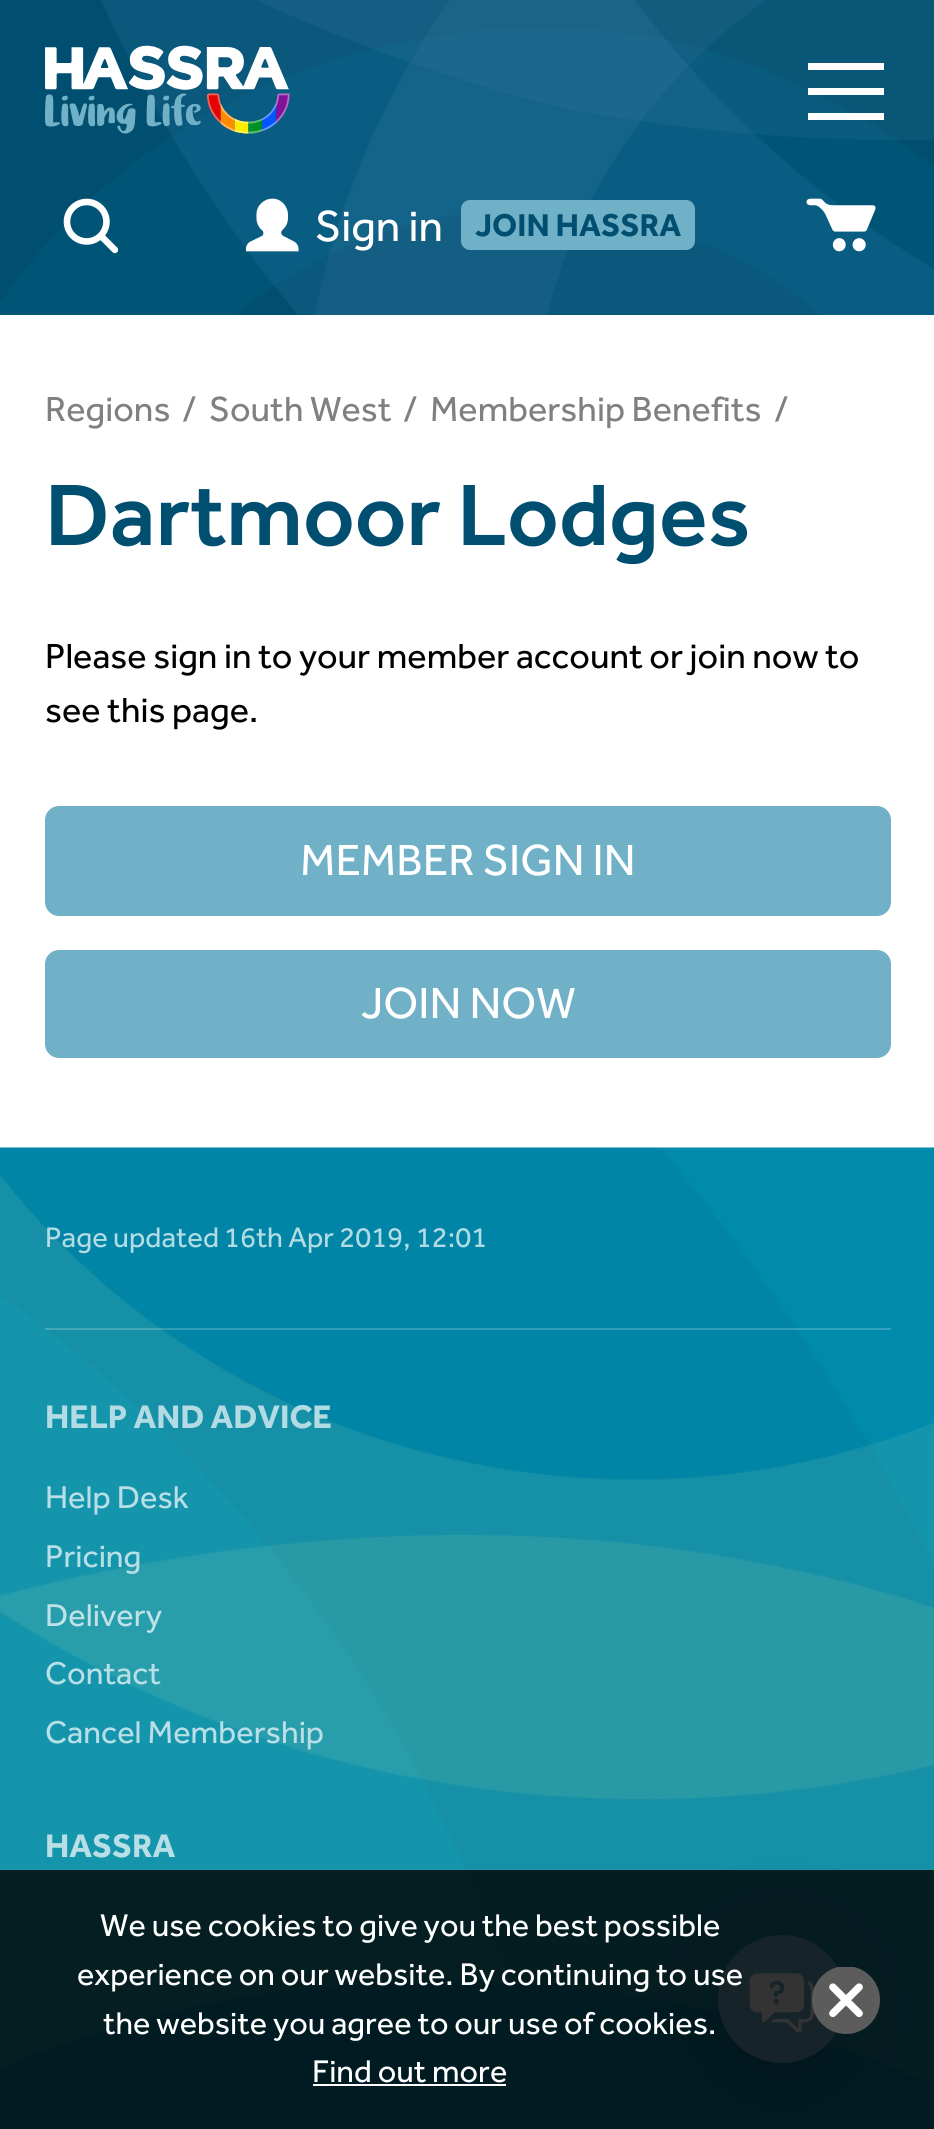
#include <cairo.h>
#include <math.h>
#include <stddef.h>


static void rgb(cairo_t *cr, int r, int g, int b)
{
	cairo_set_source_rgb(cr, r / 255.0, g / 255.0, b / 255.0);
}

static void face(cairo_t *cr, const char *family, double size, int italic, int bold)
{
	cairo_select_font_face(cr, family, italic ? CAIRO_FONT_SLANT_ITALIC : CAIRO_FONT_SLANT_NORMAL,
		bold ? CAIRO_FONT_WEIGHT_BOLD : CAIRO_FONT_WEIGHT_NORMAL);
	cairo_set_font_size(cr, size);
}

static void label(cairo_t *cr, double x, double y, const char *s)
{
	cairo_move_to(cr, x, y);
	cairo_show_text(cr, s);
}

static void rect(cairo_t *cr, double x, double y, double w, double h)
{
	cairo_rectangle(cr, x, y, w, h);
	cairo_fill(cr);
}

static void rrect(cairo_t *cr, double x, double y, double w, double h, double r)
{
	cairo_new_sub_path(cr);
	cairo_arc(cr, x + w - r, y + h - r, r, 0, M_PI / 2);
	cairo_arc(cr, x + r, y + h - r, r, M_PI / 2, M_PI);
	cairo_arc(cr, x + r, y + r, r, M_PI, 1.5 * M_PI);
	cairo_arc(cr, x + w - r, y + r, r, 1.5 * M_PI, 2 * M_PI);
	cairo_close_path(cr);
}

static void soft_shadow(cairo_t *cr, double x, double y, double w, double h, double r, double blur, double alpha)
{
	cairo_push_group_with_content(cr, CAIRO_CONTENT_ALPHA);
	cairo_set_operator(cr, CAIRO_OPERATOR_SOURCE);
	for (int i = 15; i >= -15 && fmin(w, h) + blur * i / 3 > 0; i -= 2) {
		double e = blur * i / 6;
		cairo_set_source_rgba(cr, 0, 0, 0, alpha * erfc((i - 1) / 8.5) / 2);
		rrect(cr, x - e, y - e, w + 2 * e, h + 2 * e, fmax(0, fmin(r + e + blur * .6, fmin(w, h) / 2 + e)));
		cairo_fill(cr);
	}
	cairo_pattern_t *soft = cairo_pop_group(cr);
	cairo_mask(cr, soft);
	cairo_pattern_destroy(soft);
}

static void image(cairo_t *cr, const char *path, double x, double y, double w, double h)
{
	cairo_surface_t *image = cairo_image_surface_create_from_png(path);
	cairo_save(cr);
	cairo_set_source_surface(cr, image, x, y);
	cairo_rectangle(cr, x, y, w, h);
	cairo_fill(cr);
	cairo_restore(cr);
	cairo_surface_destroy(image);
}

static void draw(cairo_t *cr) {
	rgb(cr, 255, 255, 255);
	cairo_paint(cr);
	image(cr, "image0.png", 0, 0, 934, 315);
	rgb(cr, 255, 255, 255);
	rect(cr, 808, 63, 76, 7);
	rect(cr, 808, 88, 76, 7);
	rect(cr, 808, 113, 76, 7);
	image(cr, "image1.png", 45, 45, 245, 89);
	image(cr, "image2.png", 63, 198, 56, 56);
	image(cr, "image3.png", 245, 198, 54, 54);
	face(cr, "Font", 45, 0, 0);
	label(cr, 315, 241, "Sign in");
	rgb(cr, 112, 177, 200);
	rrect(cr, 461, 200, 234, 50, 9);
	cairo_fill(cr);
	face(cr, "Font", 32.6, 0, 1);
	rgb(cr, 0, 79, 113);
	label(cr, 475, 236, "JOIN HASSRA");
	image(cr, "image4.png", 806, 198, 70, 54);
	face(cr, "Font", 36, 0, 0);
	rgb(cr, 128, 128, 128);
	label(cr, 45, 421, "Regions");
	label(cr, 182, 421, "/");
	label(cr, 209, 421, "South West");
	label(cr, 403, 421, "/");
	label(cr, 430, 421, "Membership Benefits");
	label(cr, 774, 421, "/");
	face(cr, "Font Medium", 90, 0, 0);
	rgb(cr, 0, 79, 113);
	label(cr, 45, 545, "Dartmoor Lodges");
	face(cr, "Font", 36, 0, 0);
	rgb(cr, 0, 0, 0);
	label(cr, 45, 668, "Please sign in to your member account or join now to");
	label(cr, 45, 722, "see this page.");
	rgb(cr, 112, 177, 200);
	rrect(cr, 45, 806, 846, 110, 14);
	cairo_fill(cr);
	face(cr, "Font", 45, 0, 0);
	rgb(cr, 255, 255, 255);
	label(cr, 300, 875, "MEMBER SIGN IN");
	rgb(cr, 112, 177, 200);
	rrect(cr, 45, 950, 846, 108, 14);
	cairo_fill(cr);
	rgb(cr, 255, 255, 255);
	label(cr, 361, 1018, "JOIN NOW");
	image(cr, "image5.png", 0, 1147, 934, 982);
	cairo_set_source_rgba(cr, 1, 1, 1, 0.2);
	rect(cr, 45, 1328, 846, 2);
	face(cr, "Font", 29.25, 0, 0);
	rgb(cr, 179, 219, 228);
	label(cr, 45, 1247, "Page updated");
	label(cr, 224, 1247, "16th Apr 2019, 12:01");
	face(cr, "Font", 33.75, 0, 1);
	label(cr, 45, 1428, "HELP AND ADVICE");
	face(cr, "Font", 32.6, 0, 0);
	rgb(cr, 185, 223, 230);
	label(cr, 45, 1508, "Help Desk");
	label(cr, 45, 1567, "Pricing");
	rgb(cr, 191, 226, 230);
	label(cr, 45, 1626, "Delivery");
	rgb(cr, 185, 223, 230);
	label(cr, 45, 1684, "Contact");
	label(cr, 45, 1743, "Cancel Membership");
	face(cr, "Font", 33.75, 0, 1);
	label(cr, 45, 1857, "HASSRA");
	rgb(cr, 0, 0, 0);
	soft_shadow(cr, 718, 1946, 128, 129, 64, 40.5, 0.18);
	rgb(cr, 112, 177, 200);
	cairo_arc(cr, 782, 1999, 64, 0, 2 * M_PI);
	cairo_fill(cr);
	image(cr, "image7.png", 749, 1973, 66, 60);
	cairo_set_source_rgba(cr, 0, 0, 0, 0.8);
	rect(cr, 0, 1870, 934, 259);
	face(cr, "Font", 32.4, 0, 0);
	rgb(cr, 255, 255, 255);
	label(cr, 100, 1936, "We use cookies to give you the best possible");
	label(cr, 77, 1985, "experience on our website. By continuing to use");
	label(cr, 103, 2034, "the website you agree to our use of cookies.");
	label(cr, 312, 2082, "Find out more");
	rect(cr, 313, 2084, 193, 2);
	image(cr, "image6.png", 812, 1967, 68, 67);
}

int main(void) {
	cairo_surface_t *surface = cairo_image_surface_create(CAIRO_FORMAT_RGB24, 934, 2129);
	cairo_t *cr = cairo_create(surface);
	cairo_font_options_t *options = cairo_font_options_create();
	cairo_font_options_set_hint_metrics(options, CAIRO_HINT_METRICS_OFF);
	cairo_font_options_set_hint_style(options, CAIRO_HINT_STYLE_NONE);
	cairo_set_font_options(cr, options);
	cairo_set_miter_limit(cr, 4);
	draw(cr);
	cairo_surface_write_to_png(surface, "render.png");
	cairo_font_options_destroy(options);
	cairo_destroy(cr);
	cairo_surface_destroy(surface);
	return 0;
}
